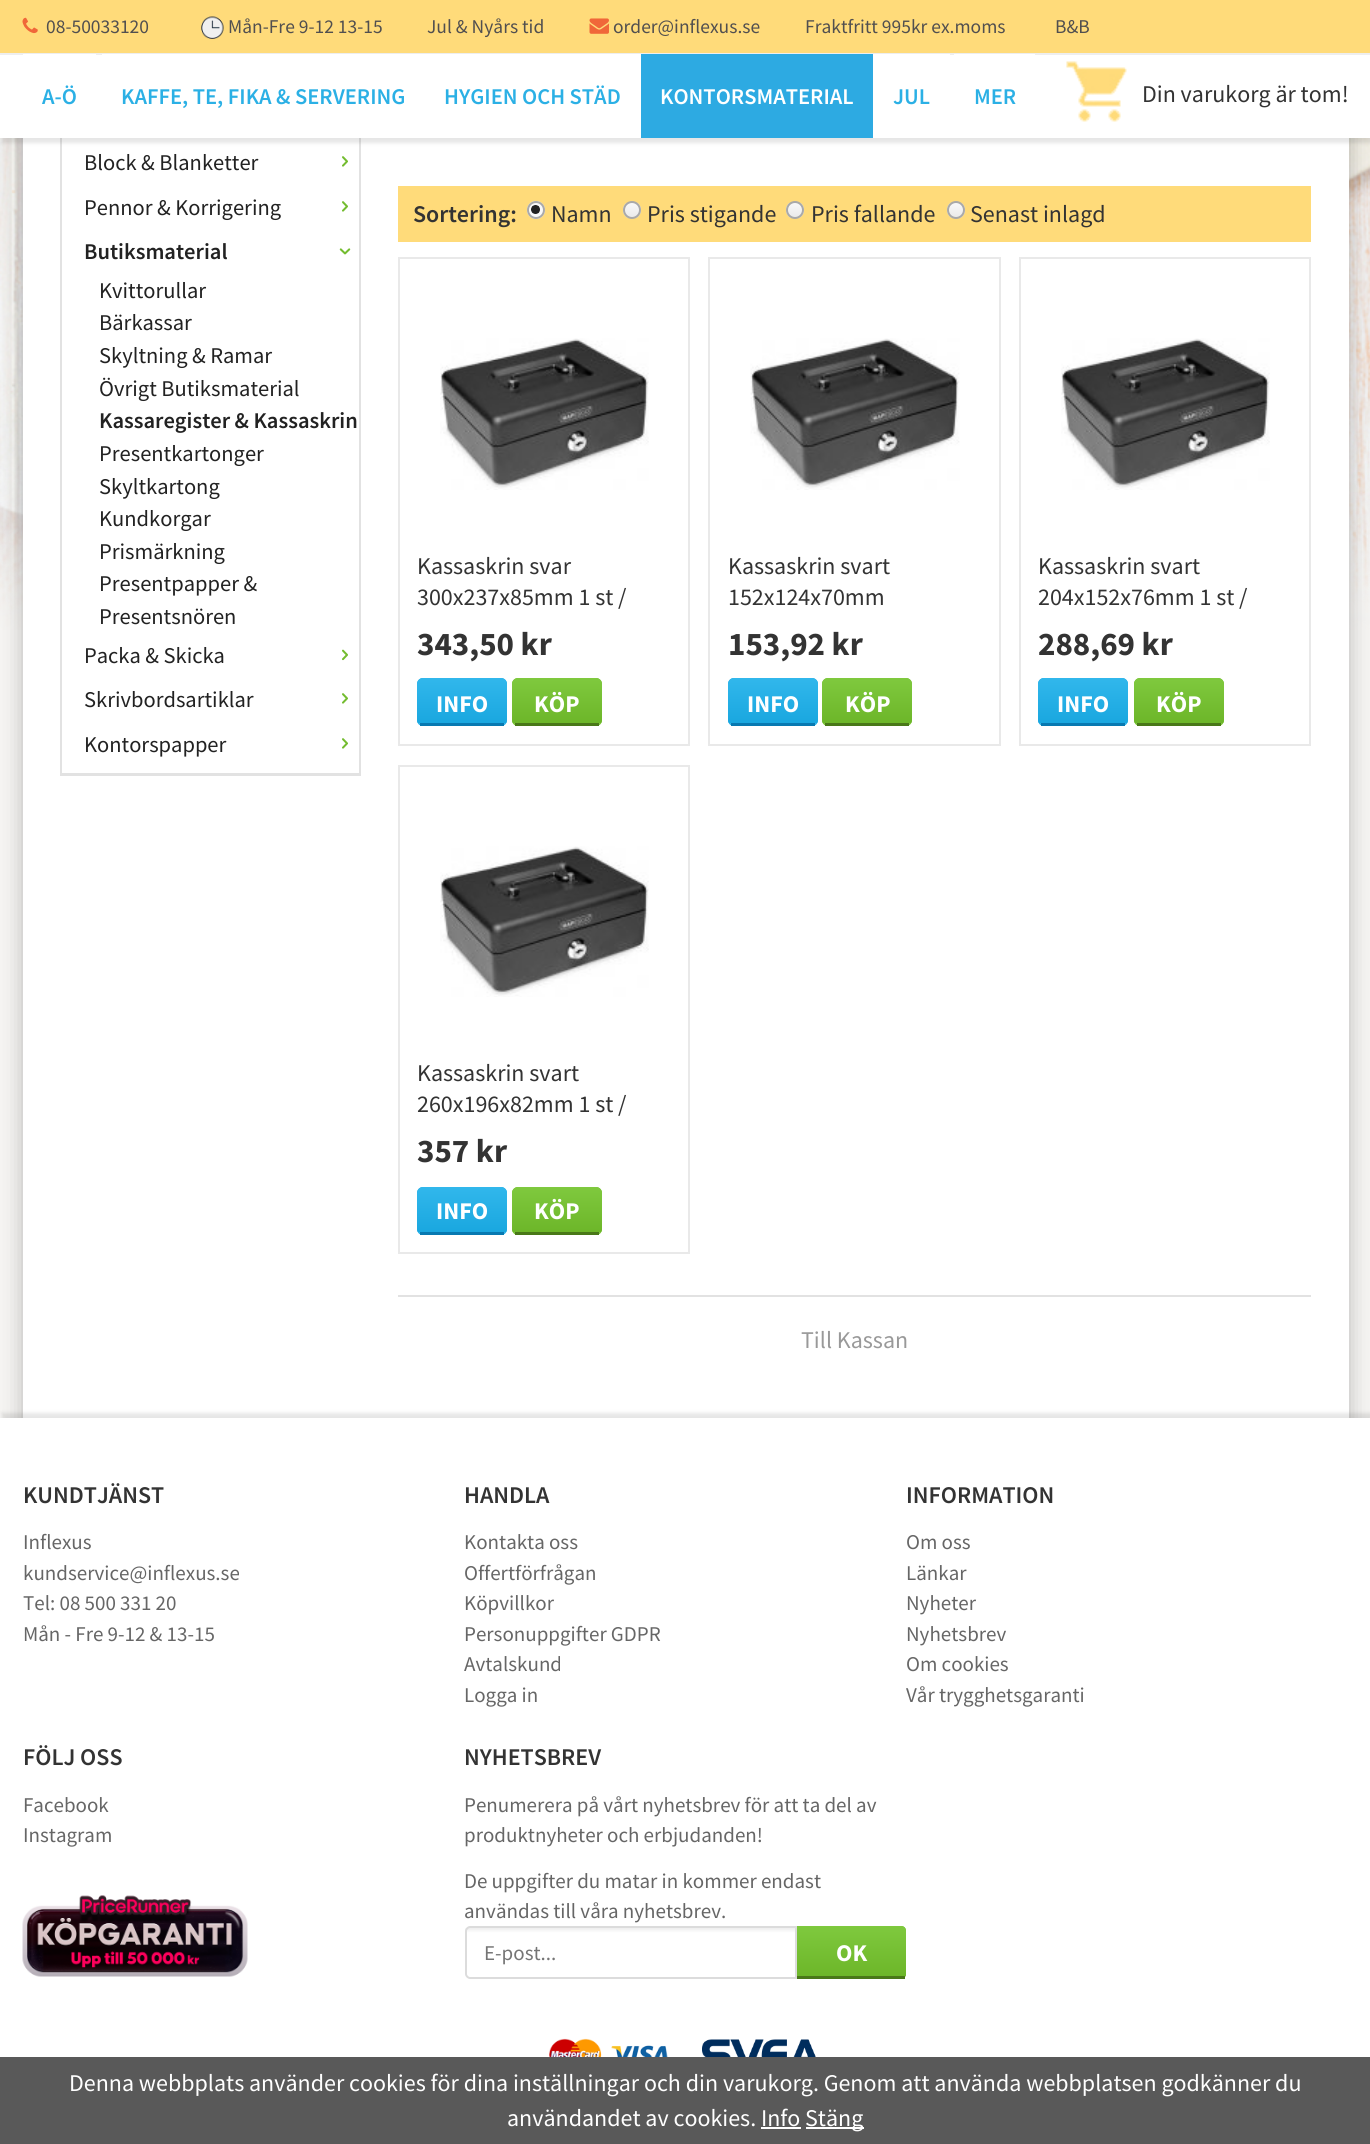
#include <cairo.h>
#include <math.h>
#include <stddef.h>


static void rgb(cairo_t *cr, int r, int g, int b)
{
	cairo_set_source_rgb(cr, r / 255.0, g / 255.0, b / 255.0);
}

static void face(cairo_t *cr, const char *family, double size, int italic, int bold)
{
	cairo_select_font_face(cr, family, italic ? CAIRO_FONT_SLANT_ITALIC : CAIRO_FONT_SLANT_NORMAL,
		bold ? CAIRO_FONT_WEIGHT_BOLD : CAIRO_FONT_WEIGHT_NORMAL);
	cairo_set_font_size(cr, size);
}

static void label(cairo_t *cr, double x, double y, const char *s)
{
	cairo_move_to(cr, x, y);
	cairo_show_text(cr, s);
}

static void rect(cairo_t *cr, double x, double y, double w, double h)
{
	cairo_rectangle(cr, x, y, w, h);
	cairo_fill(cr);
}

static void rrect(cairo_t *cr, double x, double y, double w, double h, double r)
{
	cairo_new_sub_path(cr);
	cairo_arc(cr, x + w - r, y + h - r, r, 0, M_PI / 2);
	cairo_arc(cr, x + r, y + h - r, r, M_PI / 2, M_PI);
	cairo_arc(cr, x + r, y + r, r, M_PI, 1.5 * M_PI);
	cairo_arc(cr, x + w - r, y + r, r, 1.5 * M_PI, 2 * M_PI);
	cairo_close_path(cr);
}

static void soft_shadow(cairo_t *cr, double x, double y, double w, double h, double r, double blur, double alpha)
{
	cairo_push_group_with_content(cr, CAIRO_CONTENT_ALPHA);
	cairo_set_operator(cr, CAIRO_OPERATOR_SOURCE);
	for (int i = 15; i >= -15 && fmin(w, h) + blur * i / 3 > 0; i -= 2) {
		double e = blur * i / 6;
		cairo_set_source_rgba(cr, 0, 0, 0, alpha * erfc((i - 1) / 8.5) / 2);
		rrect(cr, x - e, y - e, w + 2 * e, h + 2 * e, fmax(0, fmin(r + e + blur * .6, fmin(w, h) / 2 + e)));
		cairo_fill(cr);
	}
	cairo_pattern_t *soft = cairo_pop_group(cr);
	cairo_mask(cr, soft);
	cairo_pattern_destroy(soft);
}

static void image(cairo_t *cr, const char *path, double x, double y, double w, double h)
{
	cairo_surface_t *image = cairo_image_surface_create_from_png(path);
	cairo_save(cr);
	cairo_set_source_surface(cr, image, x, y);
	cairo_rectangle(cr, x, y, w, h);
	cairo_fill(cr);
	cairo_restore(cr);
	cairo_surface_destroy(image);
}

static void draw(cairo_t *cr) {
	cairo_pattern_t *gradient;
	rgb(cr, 246, 245, 243);
	cairo_paint(cr);
	image(cr, "image4.png", 0, 138, 1370, 492);
	rgb(cr, 0, 0, 0);
	soft_shadow(cr, 23, -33, 1326, 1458, 0, 11, 0.25);
	rgb(cr, 255, 219, 122);
	rect(cr, 0, 0, 1370, 53);
	image(cr, "image0.png", 22, 17, 16, 17);
	face(cr, "Source Sans Pro", 19.5, 0, 0);
	rgb(cr, 81, 79, 79);
	label(cr, 46, 33, "08-50033120");
	image(cr, "image1.png", 201, 16, 23, 23);
	label(cr, 228, 33, "Mån-Fre 9-12 13-15");
	label(cr, 427, 33, "Jul & Nyårs tid");
	image(cr, "image2.png", 589, 18, 20, 16);
	label(cr, 613, 33, "order@inflexus.se");
	label(cr, 805, 33, "Fraktfritt 995kr ex.moms");
	label(cr, 1055, 33, "B&B");
	rgb(cr, 255, 255, 255);
	rect(cr, 23, 138, 1326, 1280);
	rgb(cr, 226, 226, 226);
	rect(cr, 359, 138, 2, 638);
	rect(cr, 60, 774, 300, 2);
	rect(cr, 60, 138, 2, 638);
	rgb(cr, 0, 0, 0);
	soft_shadow(cr, 2, 57, 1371, 86, 0, 2, 0.1);
	rgb(cr, 255, 255, 255);
	rect(cr, 0, 55, 1370, 83);
	rgb(cr, 238, 238, 238);
	rect(cr, 0, 53, 1370, 2);
	rgb(cr, 255, 255, 255);
	rect(cr, 23, 54, 73, 1);
	face(cr, "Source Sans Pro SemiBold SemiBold", 22.5, 0, 0);
	rgb(cr, 43, 176, 229);
	label(cr, 42, 104, "A-Ö");
	rgb(cr, 255, 255, 255);
	rect(cr, 102, 54, 539, 1);
	rgb(cr, 43, 176, 229);
	label(cr, 121, 104, "KAFFE, TE, FIKA & SERVERING");
	label(cr, 444, 104, "HYGIEN OCH STÄD");
	rgb(cr, 45, 170, 226);
	rect(cr, 641, 54, 232, 84);
	rgb(cr, 255, 255, 255);
	label(cr, 660, 104, "KONTORSMATERIAL");
	rect(cr, 873, 54, 77, 1);
	rgb(cr, 43, 176, 229);
	label(cr, 893, 104, "JUL");
	rgb(cr, 255, 255, 255);
	rect(cr, 954, 54, 81, 1);
	rgb(cr, 43, 176, 229);
	label(cr, 974, 104, "MER");
	image(cr, "image3.png", 1066, 61, 61, 61);
	face(cr, "Source Sans Pro", 24, 0, 0);
	rgb(cr, 51, 51, 51);
	label(cr, 1142, 102, "Din varukorg är tom!");
	rgb(cr, 226, 226, 226);
	rect(cr, 62, 773, 297, 1);
	face(cr, "Source Sans Pro", 22.5, 0, 0);
	rgb(cr, 34, 34, 34);
	label(cr, 84, 170, "Block & Blanketter");
	image(cr, "image5.png", 342, 156, 6, 11);
	label(cr, 84, 215, "Pennor & Korrigering");
	image(cr, "image5.png", 342, 201, 6, 11);
	face(cr, "Source Sans Pro SemiBold SemiBold", 22.5, 0, 0);
	label(cr, 84, 259, "Butiksmaterial");
	image(cr, "image6.png", 339, 248, 12, 7);
	face(cr, "Source Sans Pro", 22.5, 0, 0);
	label(cr, 99, 298, "Kvittorullar");
	label(cr, 99, 330, "Bärkassar");
	label(cr, 99, 363, "Skyltning & Ramar");
	label(cr, 99, 396, "Övrigt Butiksmaterial");
	face(cr, "Source Sans Pro SemiBold SemiBold", 22.5, 0, 0);
	label(cr, 99, 428, "Kassaregister & Kassaskrin");
	face(cr, "Source Sans Pro", 22.5, 0, 0);
	label(cr, 99, 461, "Presentkartonger");
	label(cr, 99, 494, "Skyltkartong");
	label(cr, 99, 526, "Kundkorgar");
	label(cr, 99, 559, "Prismärkning");
	label(cr, 99, 591, "Presentpapper &");
	label(cr, 99, 624, "Presentsnören");
	label(cr, 84, 663, "Packa & Skicka");
	image(cr, "image7.png", 342, 649, 6, 12);
	label(cr, 84, 707, "Skrivbordsartiklar");
	image(cr, "image5.png", 342, 693, 6, 11);
	label(cr, 84, 752, "Kontorspapper");
	image(cr, "image5.png", 342, 738, 6, 11);
	rgb(cr, 255, 219, 122);
	rect(cr, 398, 186, 913, 56);
	face(cr, "Source Sans Pro SemiBold SemiBold", 24, 0, 0);
	rgb(cr, 51, 51, 51);
	label(cr, 413, 222, "Sortering:");
	rgb(cr, 249, 249, 249);
	cairo_new_path(cr);
	cairo_arc(cr, 536, 210, 9, 0, 2 * M_PI);
	cairo_fill(cr);
	image(cr, "image8.png", 531, 205, 9, 9);
	cairo_arc(cr, 536, 210, 8, 0, 2 * M_PI);
	rgb(cr, 169, 169, 169);
	cairo_stroke(cr);
	face(cr, "Source Sans Pro", 24, 0, 0);
	rgb(cr, 51, 51, 51);
	label(cr, 551, 222, "Namn");
	cairo_save(cr);
	rrect(cr, 623, 201, 18, 18, 9);
	cairo_clip(cr);
	gradient = cairo_pattern_create_linear(632, 203, 632, 218);
	cairo_pattern_add_color_stop_rgba(gradient, 0, 0.976, 0.976, 0.976, 1);
	cairo_pattern_add_color_stop_rgba(gradient, 1, 0.914, 0.914, 0.914, 1);
	cairo_set_source(cr, gradient);
	cairo_pattern_destroy(gradient);
	rect(cr, 623, 203, 18, 15);
	cairo_restore(cr);
	cairo_arc(cr, 632, 210, 8, 0, 2 * M_PI);
	rgb(cr, 169, 169, 169);
	cairo_stroke(cr);
	rgb(cr, 51, 51, 51);
	label(cr, 647, 222, "Pris stigande");
	cairo_save(cr);
	rrect(cr, 786, 201, 18, 18, 9);
	cairo_clip(cr);
	gradient = cairo_pattern_create_linear(795, 203, 795, 218);
	cairo_pattern_add_color_stop_rgba(gradient, 0, 0.976, 0.976, 0.976, 1);
	cairo_pattern_add_color_stop_rgba(gradient, 1, 0.914, 0.914, 0.914, 1);
	cairo_set_source(cr, gradient);
	cairo_pattern_destroy(gradient);
	rect(cr, 786, 203, 18, 15);
	cairo_restore(cr);
	cairo_arc(cr, 795, 210, 8, 0, 2 * M_PI);
	rgb(cr, 169, 169, 169);
	cairo_stroke(cr);
	rgb(cr, 51, 51, 51);
	label(cr, 811, 222, "Pris fallande");
	cairo_save(cr);
	rrect(cr, 947, 201, 18, 18, 9);
	cairo_clip(cr);
	gradient = cairo_pattern_create_linear(956, 203, 956, 218);
	cairo_pattern_add_color_stop_rgba(gradient, 0, 0.976, 0.976, 0.976, 1);
	cairo_pattern_add_color_stop_rgba(gradient, 1, 0.914, 0.914, 0.914, 1);
	cairo_set_source(cr, gradient);
	cairo_pattern_destroy(gradient);
	rect(cr, 947, 203, 18, 15);
	cairo_restore(cr);
	cairo_arc(cr, 956, 210, 8, 0, 2 * M_PI);
	rgb(cr, 169, 169, 169);
	cairo_stroke(cr);
	rgb(cr, 51, 51, 51);
	label(cr, 970, 222, "Senast inlagd");
	cairo_rectangle(cr, 399, 258, 290, 487);
	rgb(cr, 233, 233, 233);
	cairo_stroke(cr);
	image(cr, "image9.png", 440, 338, 209, 152);
	rgb(cr, 51, 51, 51);
	label(cr, 417, 574, "Kassaskrin svar");
	label(cr, 417, 605, "300x237x85mm 1 st /");
	face(cr, "Source Sans Pro", 33, 0, 1);
	label(cr, 417, 655, "343,50 kr");
	rgb(cr, 31, 170, 225);
	rrect(cr, 417, 678, 90, 48, 6);
	cairo_fill(cr);
	cairo_save(cr);
	rrect(cr, 417, 678, 90, 48, 6);
	cairo_clip(cr);
	gradient = cairo_pattern_create_linear(462, 678, 462, 723);
	cairo_pattern_add_color_stop_rgba(gradient, 0, 0.192, 0.718, 0.925, 1);
	cairo_pattern_add_color_stop_rgba(gradient, 1, 0.102, 0.655, 0.875, 1);
	cairo_set_source(cr, gradient);
	cairo_pattern_destroy(gradient);
	cairo_new_path(cr);
	cairo_move_to(cr, 423, 678);
	cairo_line_to(cr, 501, 678);
	cairo_curve_to(cr, 504.5, 678, 507, 680.5, 507, 684);
	cairo_line_to(cr, 507, 723);
	cairo_line_to(cr, 417, 723);
	cairo_line_to(cr, 417, 684);
	cairo_curve_to(cr, 417, 680.5, 419.5, 678, 423, 678);
	cairo_close_path(cr);
	cairo_fill(cr);
	gradient = cairo_pattern_create_linear(462, 723, 462, 768);
	cairo_pattern_add_color_stop_rgba(gradient, 0, 0.192, 0.718, 0.925, 1);
	cairo_pattern_add_color_stop_rgba(gradient, 1, 0.102, 0.655, 0.875, 1);
	cairo_set_source(cr, gradient);
	cairo_pattern_destroy(gradient);
	rect(cr, 417, 723, 90, 3);
	cairo_restore(cr);
	rgb(cr, 8, 121, 177);
	rect(cr, 420, 723, 84, 3);
	face(cr, "Source Sans Pro", 24, 0, 1);
	rgb(cr, 255, 255, 255);
	label(cr, 436, 712, "INFO");
	rgb(cr, 115, 188, 47);
	rrect(cr, 512, 678, 90, 48, 6);
	cairo_fill(cr);
	cairo_save(cr);
	rrect(cr, 512, 678, 90, 48, 6);
	cairo_clip(cr);
	gradient = cairo_pattern_create_linear(557, 678, 557, 723);
	cairo_pattern_add_color_stop_rgba(gradient, 0, 0.498, 0.788, 0.243, 1);
	cairo_pattern_add_color_stop_rgba(gradient, 1, 0.427, 0.714, 0.161, 1);
	cairo_set_source(cr, gradient);
	cairo_pattern_destroy(gradient);
	cairo_new_path(cr);
	cairo_move_to(cr, 518, 678);
	cairo_line_to(cr, 596, 678);
	cairo_curve_to(cr, 599.5, 678, 602, 680.5, 602, 684);
	cairo_line_to(cr, 602, 723);
	cairo_line_to(cr, 512, 723);
	cairo_line_to(cr, 512, 684);
	cairo_curve_to(cr, 512, 680.5, 514.5, 678, 518, 678);
	cairo_close_path(cr);
	cairo_fill(cr);
	gradient = cairo_pattern_create_linear(557, 723, 557, 768);
	cairo_pattern_add_color_stop_rgba(gradient, 0, 0.498, 0.788, 0.243, 1);
	cairo_pattern_add_color_stop_rgba(gradient, 1, 0.427, 0.714, 0.161, 1);
	cairo_set_source(cr, gradient);
	cairo_pattern_destroy(gradient);
	rect(cr, 512, 723, 90, 3);
	cairo_restore(cr);
	rgb(cr, 73, 120, 24);
	rect(cr, 515, 723, 84, 3);
	rgb(cr, 255, 255, 255);
	label(cr, 534, 712, "KÖP");
	cairo_rectangle(cr, 709, 258, 291, 487);
	rgb(cr, 233, 233, 233);
	cairo_stroke(cr);
	image(cr, "image10.png", 750, 338, 210, 152);
	face(cr, "Source Sans Pro", 24, 0, 0);
	rgb(cr, 51, 51, 51);
	label(cr, 728, 574, "Kassaskrin svart");
	label(cr, 728, 605, "152x124x70mm");
	face(cr, "Source Sans Pro", 33, 0, 1);
	label(cr, 728, 655, "153,92 kr");
	rgb(cr, 31, 170, 225);
	rrect(cr, 728, 678, 90, 48, 6);
	cairo_fill(cr);
	cairo_save(cr);
	rrect(cr, 728, 678, 90, 48, 6);
	cairo_clip(cr);
	gradient = cairo_pattern_create_linear(773, 678, 773, 723);
	cairo_pattern_add_color_stop_rgba(gradient, 0, 0.192, 0.718, 0.925, 1);
	cairo_pattern_add_color_stop_rgba(gradient, 1, 0.102, 0.655, 0.875, 1);
	cairo_set_source(cr, gradient);
	cairo_pattern_destroy(gradient);
	cairo_new_path(cr);
	cairo_move_to(cr, 734, 678);
	cairo_line_to(cr, 812, 678);
	cairo_curve_to(cr, 815.5, 678, 818, 680.5, 818, 684);
	cairo_line_to(cr, 818, 723);
	cairo_line_to(cr, 728, 723);
	cairo_line_to(cr, 728, 684);
	cairo_curve_to(cr, 728, 680.5, 730.5, 678, 734, 678);
	cairo_close_path(cr);
	cairo_fill(cr);
	gradient = cairo_pattern_create_linear(773, 723, 773, 768);
	cairo_pattern_add_color_stop_rgba(gradient, 0, 0.192, 0.718, 0.925, 1);
	cairo_pattern_add_color_stop_rgba(gradient, 1, 0.102, 0.655, 0.875, 1);
	cairo_set_source(cr, gradient);
	cairo_pattern_destroy(gradient);
	rect(cr, 728, 723, 90, 3);
	cairo_restore(cr);
	rgb(cr, 8, 121, 177);
	rect(cr, 731, 723, 84, 3);
	face(cr, "Source Sans Pro", 24, 0, 1);
	rgb(cr, 255, 255, 255);
	label(cr, 747, 712, "INFO");
	rgb(cr, 115, 188, 47);
	rrect(cr, 822, 678, 90, 48, 6);
	cairo_fill(cr);
	cairo_save(cr);
	rrect(cr, 822, 678, 90, 48, 6);
	cairo_clip(cr);
	gradient = cairo_pattern_create_linear(867, 678, 867, 723);
	cairo_pattern_add_color_stop_rgba(gradient, 0, 0.498, 0.788, 0.243, 1);
	cairo_pattern_add_color_stop_rgba(gradient, 1, 0.427, 0.714, 0.161, 1);
	cairo_set_source(cr, gradient);
	cairo_pattern_destroy(gradient);
	cairo_new_path(cr);
	cairo_move_to(cr, 828, 678);
	cairo_line_to(cr, 906, 678);
	cairo_curve_to(cr, 909.5, 678, 912, 680.5, 912, 684);
	cairo_line_to(cr, 912, 723);
	cairo_line_to(cr, 822, 723);
	cairo_line_to(cr, 822, 684);
	cairo_curve_to(cr, 822, 680.5, 824.5, 678, 828, 678);
	cairo_close_path(cr);
	cairo_fill(cr);
	gradient = cairo_pattern_create_linear(867, 723, 867, 768);
	cairo_pattern_add_color_stop_rgba(gradient, 0, 0.498, 0.788, 0.243, 1);
	cairo_pattern_add_color_stop_rgba(gradient, 1, 0.427, 0.714, 0.161, 1);
	cairo_set_source(cr, gradient);
	cairo_pattern_destroy(gradient);
	rect(cr, 822, 723, 90, 3);
	cairo_restore(cr);
	rgb(cr, 73, 120, 24);
	rect(cr, 825, 723, 84, 3);
	rgb(cr, 255, 255, 255);
	label(cr, 845, 712, "KÖP");
	cairo_rectangle(cr, 1020, 258, 290, 487);
	rgb(cr, 233, 233, 233);
	cairo_stroke(cr);
	image(cr, "image9.png", 1061, 338, 209, 152);
	face(cr, "Source Sans Pro", 24, 0, 0);
	rgb(cr, 51, 51, 51);
	label(cr, 1038, 574, "Kassaskrin svart");
	label(cr, 1038, 605, "204x152x76mm 1 st /");
	face(cr, "Source Sans Pro", 33, 0, 1);
	label(cr, 1038, 655, "288,69 kr");
	rgb(cr, 31, 170, 225);
	rrect(cr, 1038, 678, 90, 48, 6);
	cairo_fill(cr);
	cairo_save(cr);
	rrect(cr, 1038, 678, 90, 48, 6);
	cairo_clip(cr);
	gradient = cairo_pattern_create_linear(1083, 678, 1083, 723);
	cairo_pattern_add_color_stop_rgba(gradient, 0, 0.192, 0.718, 0.925, 1);
	cairo_pattern_add_color_stop_rgba(gradient, 1, 0.102, 0.655, 0.875, 1);
	cairo_set_source(cr, gradient);
	cairo_pattern_destroy(gradient);
	cairo_new_path(cr);
	cairo_move_to(cr, 1044, 678);
	cairo_line_to(cr, 1122, 678);
	cairo_curve_to(cr, 1125.5, 678, 1128, 680.5, 1128, 684);
	cairo_line_to(cr, 1128, 723);
	cairo_line_to(cr, 1038, 723);
	cairo_line_to(cr, 1038, 684);
	cairo_curve_to(cr, 1038, 680.5, 1040.5, 678, 1044, 678);
	cairo_close_path(cr);
	cairo_fill(cr);
	gradient = cairo_pattern_create_linear(1083, 723, 1083, 768);
	cairo_pattern_add_color_stop_rgba(gradient, 0, 0.192, 0.718, 0.925, 1);
	cairo_pattern_add_color_stop_rgba(gradient, 1, 0.102, 0.655, 0.875, 1);
	cairo_set_source(cr, gradient);
	cairo_pattern_destroy(gradient);
	rect(cr, 1038, 723, 90, 3);
	cairo_restore(cr);
	rgb(cr, 8, 121, 177);
	rect(cr, 1041, 723, 84, 3);
	face(cr, "Source Sans Pro", 24, 0, 1);
	rgb(cr, 255, 255, 255);
	label(cr, 1057, 712, "INFO");
	rgb(cr, 115, 188, 47);
	rrect(cr, 1134, 678, 90, 48, 6);
	cairo_fill(cr);
	cairo_save(cr);
	rrect(cr, 1134, 678, 90, 48, 6);
	cairo_clip(cr);
	gradient = cairo_pattern_create_linear(1179, 678, 1179, 723);
	cairo_pattern_add_color_stop_rgba(gradient, 0, 0.498, 0.788, 0.243, 1);
	cairo_pattern_add_color_stop_rgba(gradient, 1, 0.427, 0.714, 0.161, 1);
	cairo_set_source(cr, gradient);
	cairo_pattern_destroy(gradient);
	cairo_new_path(cr);
	cairo_move_to(cr, 1140, 678);
	cairo_line_to(cr, 1218, 678);
	cairo_curve_to(cr, 1221.5, 678, 1224, 680.5, 1224, 684);
	cairo_line_to(cr, 1224, 723);
	cairo_line_to(cr, 1134, 723);
	cairo_line_to(cr, 1134, 684);
	cairo_curve_to(cr, 1134, 680.5, 1136.5, 678, 1140, 678);
	cairo_close_path(cr);
	cairo_fill(cr);
	gradient = cairo_pattern_create_linear(1179, 723, 1179, 768);
	cairo_pattern_add_color_stop_rgba(gradient, 0, 0.498, 0.788, 0.243, 1);
	cairo_pattern_add_color_stop_rgba(gradient, 1, 0.427, 0.714, 0.161, 1);
	cairo_set_source(cr, gradient);
	cairo_pattern_destroy(gradient);
	rect(cr, 1134, 723, 90, 3);
	cairo_restore(cr);
	rgb(cr, 73, 120, 24);
	rect(cr, 1137, 723, 84, 3);
	rgb(cr, 255, 255, 255);
	label(cr, 1156, 712, "KÖP");
	cairo_rectangle(cr, 399, 766, 290, 487);
	rgb(cr, 233, 233, 233);
	cairo_stroke(cr);
	image(cr, "image11.png", 440, 846, 209, 151);
	face(cr, "Source Sans Pro", 24, 0, 0);
	rgb(cr, 51, 51, 51);
	label(cr, 417, 1081, "Kassaskrin svart");
	label(cr, 417, 1112, "260x196x82mm 1 st /");
	face(cr, "Source Sans Pro", 33, 0, 1);
	label(cr, 417, 1162, "357 kr");
	rgb(cr, 31, 170, 225);
	rrect(cr, 417, 1187, 90, 48, 6);
	cairo_fill(cr);
	cairo_save(cr);
	rrect(cr, 417, 1187, 90, 48, 6);
	cairo_clip(cr);
	gradient = cairo_pattern_create_linear(462, 1187, 462, 1232);
	cairo_pattern_add_color_stop_rgba(gradient, 0, 0.192, 0.718, 0.925, 1);
	cairo_pattern_add_color_stop_rgba(gradient, 1, 0.102, 0.655, 0.875, 1);
	cairo_set_source(cr, gradient);
	cairo_pattern_destroy(gradient);
	cairo_new_path(cr);
	cairo_move_to(cr, 423, 1187);
	cairo_line_to(cr, 501, 1187);
	cairo_curve_to(cr, 504.5, 1187, 507, 1189.5, 507, 1193);
	cairo_line_to(cr, 507, 1232);
	cairo_line_to(cr, 417, 1232);
	cairo_line_to(cr, 417, 1193);
	cairo_curve_to(cr, 417, 1189.5, 419.5, 1187, 423, 1187);
	cairo_close_path(cr);
	cairo_fill(cr);
	gradient = cairo_pattern_create_linear(462, 1232, 462, 1277);
	cairo_pattern_add_color_stop_rgba(gradient, 0, 0.192, 0.718, 0.925, 1);
	cairo_pattern_add_color_stop_rgba(gradient, 1, 0.102, 0.655, 0.875, 1);
	cairo_set_source(cr, gradient);
	cairo_pattern_destroy(gradient);
	rect(cr, 417, 1232, 90, 3);
	cairo_restore(cr);
	rgb(cr, 8, 121, 177);
	rect(cr, 420, 1232, 84, 3);
	face(cr, "Source Sans Pro", 24, 0, 1);
	rgb(cr, 255, 255, 255);
	label(cr, 436, 1219, "INFO");
	rgb(cr, 115, 188, 47);
	rrect(cr, 512, 1187, 90, 48, 6);
	cairo_fill(cr);
	cairo_save(cr);
	rrect(cr, 512, 1187, 90, 48, 6);
	cairo_clip(cr);
	gradient = cairo_pattern_create_linear(557, 1187, 557, 1232);
	cairo_pattern_add_color_stop_rgba(gradient, 0, 0.498, 0.788, 0.243, 1);
	cairo_pattern_add_color_stop_rgba(gradient, 1, 0.427, 0.714, 0.161, 1);
	cairo_set_source(cr, gradient);
	cairo_pattern_destroy(gradient);
	cairo_new_path(cr);
	cairo_move_to(cr, 518, 1187);
	cairo_line_to(cr, 596, 1187);
	cairo_curve_to(cr, 599.5, 1187, 602, 1189.5, 602, 1193);
	cairo_line_to(cr, 602, 1232);
	cairo_line_to(cr, 512, 1232);
	cairo_line_to(cr, 512, 1193);
	cairo_curve_to(cr, 512, 1189.5, 514.5, 1187, 518, 1187);
	cairo_close_path(cr);
	cairo_fill(cr);
	gradient = cairo_pattern_create_linear(557, 1232, 557, 1277);
	cairo_pattern_add_color_stop_rgba(gradient, 0, 0.498, 0.788, 0.243, 1);
	cairo_pattern_add_color_stop_rgba(gradient, 1, 0.427, 0.714, 0.161, 1);
	cairo_set_source(cr, gradient);
	cairo_pattern_destroy(gradient);
	rect(cr, 512, 1232, 90, 3);
	cairo_restore(cr);
	rgb(cr, 73, 120, 24);
	rect(cr, 515, 1232, 84, 3);
	rgb(cr, 255, 255, 255);
	label(cr, 534, 1219, "KÖP");
	rgb(cr, 226, 226, 226);
	rect(cr, 398, 1295, 913, 2);
	face(cr, "Source Sans Pro", 24, 0, 0);
	rgb(cr, 153, 153, 153);
	label(cr, 801, 1348, "Till Kassan");
	rgb(cr, 0, 0, 0);
	soft_shadow(cr, 2, 1413, 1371, 729, 0, 2, 0.1);
	rgb(cr, 255, 255, 255);
	rect(cr, 0, 1418, 1370, 639);
	face(cr, "Source Sans Pro SemiBold SemiBold", 24, 0, 0);
	rgb(cr, 51, 51, 51);
	label(cr, 23, 1503, "KUNDTJÄNST");
	face(cr, "Source Sans Pro", 21, 0, 0);
	rgb(cr, 102, 102, 102);
	label(cr, 23, 1549, "Inflexus");
	label(cr, 23, 1580, "kundservice@inflexus.se");
	label(cr, 23, 1610, "Tel: 08 500 331 20");
	label(cr, 23, 1641, "Mån - Fre 9-12 & 13-15");
	face(cr, "Source Sans Pro SemiBold SemiBold", 24, 0, 0);
	rgb(cr, 51, 51, 51);
	label(cr, 464, 1503, "HANDLA");
	face(cr, "Source Sans Pro", 21, 0, 0);
	rgb(cr, 102, 102, 102);
	label(cr, 464, 1549, "Kontakta oss");
	label(cr, 464, 1580, "Offertförfrågan");
	label(cr, 464, 1610, "Köpvillkor");
	label(cr, 464, 1641, "Personuppgifter GDPR");
	label(cr, 464, 1671, "Avtalskund");
	label(cr, 464, 1702, "Logga in");
	face(cr, "Source Sans Pro SemiBold SemiBold", 24, 0, 0);
	rgb(cr, 51, 51, 51);
	label(cr, 906, 1503, "INFORMATION");
	face(cr, "Source Sans Pro", 21, 0, 0);
	rgb(cr, 102, 102, 102);
	label(cr, 906, 1549, "Om oss");
	label(cr, 906, 1580, "Länkar");
	label(cr, 906, 1610, "Nyheter");
	label(cr, 906, 1641, "Nyhetsbrev");
	label(cr, 906, 1671, "Om cookies");
	label(cr, 906, 1702, "Vår trygghetsgaranti");
	face(cr, "Source Sans Pro SemiBold SemiBold", 24, 0, 0);
	rgb(cr, 51, 51, 51);
	label(cr, 23, 1765, "FÖLJ OSS");
	face(cr, "Source Sans Pro", 21, 0, 0);
	rgb(cr, 102, 102, 102);
	label(cr, 23, 1812, "Facebook");
	label(cr, 23, 1842, "Instagram");
	image(cr, "image12.png", 22, 1895, 226, 82);
	face(cr, "Source Sans Pro SemiBold SemiBold", 24, 0, 0);
	rgb(cr, 51, 51, 51);
	label(cr, 464, 1765, "NYHETSBREV");
	face(cr, "Source Sans Pro", 21, 0, 0);
	rgb(cr, 102, 102, 102);
	label(cr, 464, 1812, "Penumerera på vårt nyhetsbrev för att ta del av");
	label(cr, 464, 1842, "produktnyheter och erbjudanden!");
	label(cr, 464, 1888, "De uppgifter du matar in kommer endast");
	label(cr, 464, 1918, "användas till våra nyhetsbrev.");
	cairo_save(cr);
	cairo_new_path(cr);
	cairo_move_to(cr, 470, 1926);
	cairo_line_to(cr, 797, 1926);
	cairo_line_to(cr, 797, 1979);
	cairo_line_to(cr, 470, 1979);
	cairo_curve_to(cr, 467, 1979, 465, 1977, 465, 1974);
	cairo_line_to(cr, 465, 1931);
	cairo_curve_to(cr, 465, 1928, 467, 1926, 470, 1926);
	cairo_close_path(cr);
	cairo_clip(cr);
	gradient = cairo_pattern_create_linear(631, 1977, 631, 1928);
	cairo_pattern_add_color_stop_rgba(gradient, 0.9, 1, 1, 1, 1);
	cairo_pattern_add_color_stop_rgba(gradient, 1, 0.933, 0.933, 0.933, 1);
	cairo_set_source(cr, gradient);
	cairo_pattern_destroy(gradient);
	rect(cr, 465, 1928, 330, 49);
	cairo_restore(cr);
	cairo_new_path(cr);
	cairo_move_to(cr, 470, 1927);
	cairo_line_to(cr, 796, 1927);
	cairo_line_to(cr, 796, 1978);
	cairo_line_to(cr, 470, 1978);
	cairo_curve_to(cr, 468, 1978, 466, 1976, 466, 1974);
	cairo_line_to(cr, 466, 1931);
	cairo_curve_to(cr, 466, 1929, 468, 1927, 470, 1927);
	cairo_close_path(cr);
	rgb(cr, 220, 220, 220);
	cairo_stroke(cr);
	rgb(cr, 117, 117, 117);
	label(cr, 484, 1960, "E-post...");
	rgb(cr, 115, 188, 47);
	cairo_new_path(cr);
	cairo_move_to(cr, 797, 1926);
	cairo_line_to(cr, 901, 1926);
	cairo_curve_to(cr, 904, 1926, 906, 1928, 906, 1931);
	cairo_line_to(cr, 906, 1974);
	cairo_curve_to(cr, 906, 1977, 904, 1979, 901, 1979);
	cairo_line_to(cr, 797, 1979);
	cairo_close_path(cr);
	cairo_fill(cr);
	cairo_save(cr);
	cairo_new_path(cr);
	cairo_move_to(cr, 797, 1926);
	cairo_line_to(cr, 901, 1926);
	cairo_curve_to(cr, 904, 1926, 906, 1928, 906, 1931);
	cairo_line_to(cr, 906, 1974);
	cairo_curve_to(cr, 906, 1977, 904, 1979, 901, 1979);
	cairo_line_to(cr, 797, 1979);
	cairo_close_path(cr);
	cairo_clip(cr);
	gradient = cairo_pattern_create_linear(851, 1926, 851, 1976);
	cairo_pattern_add_color_stop_rgba(gradient, 0, 0.498, 0.788, 0.243, 1);
	cairo_pattern_add_color_stop_rgba(gradient, 1, 0.427, 0.714, 0.161, 1);
	cairo_set_source(cr, gradient);
	cairo_pattern_destroy(gradient);
	cairo_new_path(cr);
	cairo_move_to(cr, 797, 1926);
	cairo_line_to(cr, 901, 1926);
	cairo_curve_to(cr, 904, 1926, 906, 1928, 906, 1931);
	cairo_line_to(cr, 906, 1976);
	cairo_line_to(cr, 797, 1976);
	cairo_close_path(cr);
	cairo_fill(cr);
	cairo_restore(cr);
	rgb(cr, 73, 120, 24);
	rect(cr, 797, 1976, 108, 3);
	face(cr, "Source Sans Pro", 24, 0, 1);
	rgb(cr, 255, 255, 255);
	label(cr, 836, 1961, "OK");
	image(cr, "image13.png", 549, 2038, 119, 19);
	image(cr, "image14.png", 702, 2039, 114, 18);
	rgb(cr, 89, 89, 89);
	rect(cr, 0, 2057, 1370, 87);
	face(cr, "Source Sans Pro", 24, 0, 0);
	rgb(cr, 255, 255, 255);
	label(cr, 69, 2091, "Denna webbplats använder cookies för dina inställningar och din varukorg. Genom att använda webbplatsen godkänner du");
	label(cr, 507, 2126, "användandet av cookies. Info");
	rect(cr, 806, 2127, 58, 2);
	label(cr, 805, 2126, "Stäng");
	rect(cr, 761, 2127, 40, 2);
}

int main(void) {
	cairo_surface_t *surface = cairo_image_surface_create(CAIRO_FORMAT_RGB24, 1370, 2144);
	cairo_t *cr = cairo_create(surface);
	cairo_font_options_t *options = cairo_font_options_create();
	cairo_font_options_set_hint_metrics(options, CAIRO_HINT_METRICS_OFF);
	cairo_font_options_set_hint_style(options, CAIRO_HINT_STYLE_NONE);
	cairo_set_font_options(cr, options);
	cairo_set_miter_limit(cr, 4);
	draw(cr);
	cairo_surface_write_to_png(surface, "render.png");
	cairo_font_options_destroy(options);
	cairo_destroy(cr);
	cairo_surface_destroy(surface);
	return 0;
}
